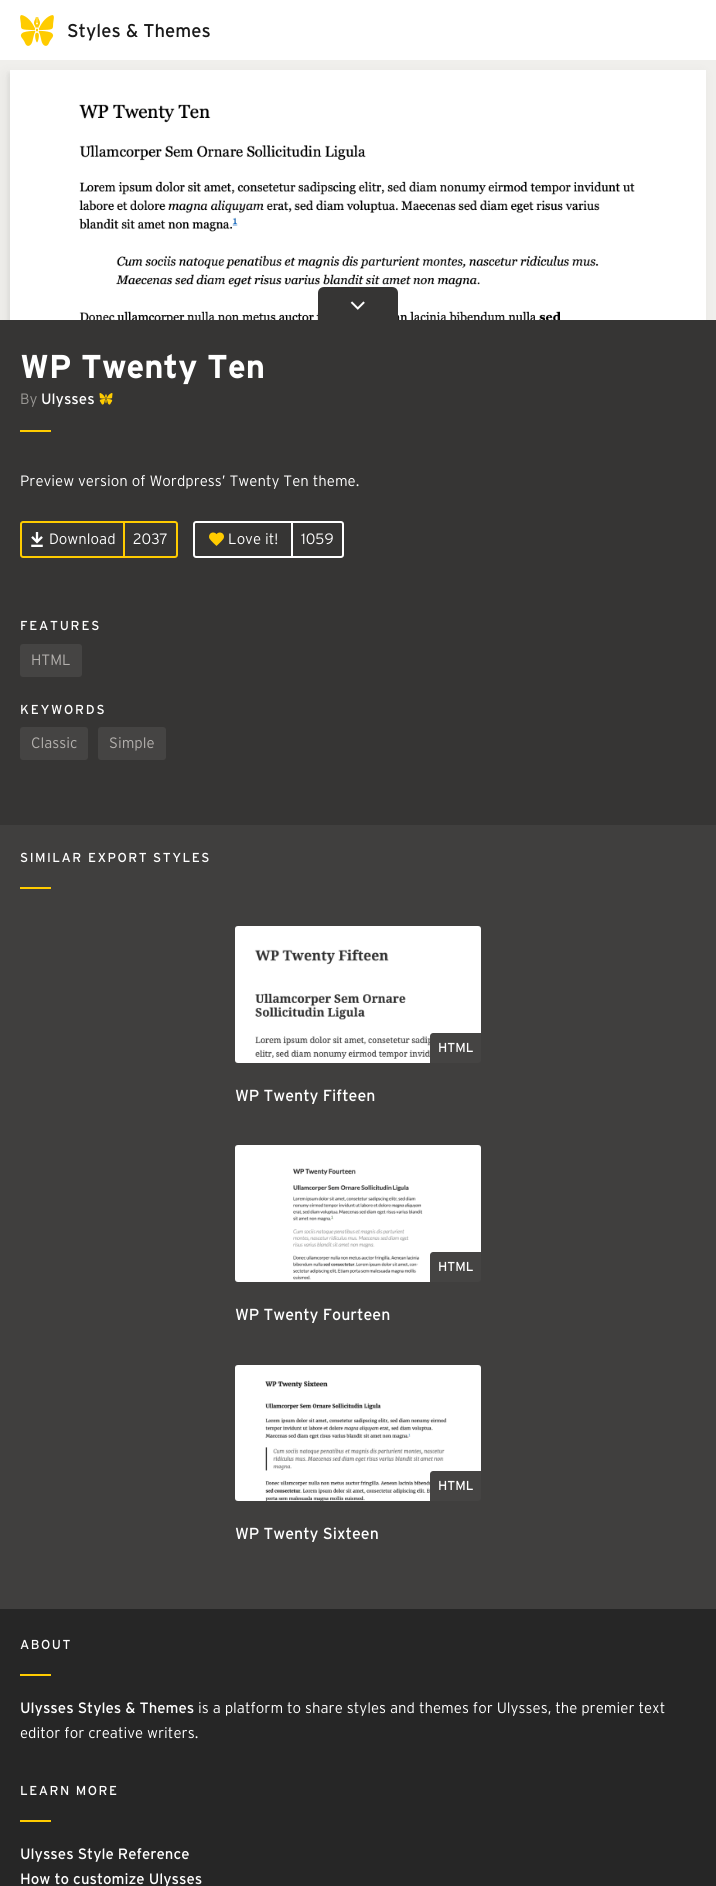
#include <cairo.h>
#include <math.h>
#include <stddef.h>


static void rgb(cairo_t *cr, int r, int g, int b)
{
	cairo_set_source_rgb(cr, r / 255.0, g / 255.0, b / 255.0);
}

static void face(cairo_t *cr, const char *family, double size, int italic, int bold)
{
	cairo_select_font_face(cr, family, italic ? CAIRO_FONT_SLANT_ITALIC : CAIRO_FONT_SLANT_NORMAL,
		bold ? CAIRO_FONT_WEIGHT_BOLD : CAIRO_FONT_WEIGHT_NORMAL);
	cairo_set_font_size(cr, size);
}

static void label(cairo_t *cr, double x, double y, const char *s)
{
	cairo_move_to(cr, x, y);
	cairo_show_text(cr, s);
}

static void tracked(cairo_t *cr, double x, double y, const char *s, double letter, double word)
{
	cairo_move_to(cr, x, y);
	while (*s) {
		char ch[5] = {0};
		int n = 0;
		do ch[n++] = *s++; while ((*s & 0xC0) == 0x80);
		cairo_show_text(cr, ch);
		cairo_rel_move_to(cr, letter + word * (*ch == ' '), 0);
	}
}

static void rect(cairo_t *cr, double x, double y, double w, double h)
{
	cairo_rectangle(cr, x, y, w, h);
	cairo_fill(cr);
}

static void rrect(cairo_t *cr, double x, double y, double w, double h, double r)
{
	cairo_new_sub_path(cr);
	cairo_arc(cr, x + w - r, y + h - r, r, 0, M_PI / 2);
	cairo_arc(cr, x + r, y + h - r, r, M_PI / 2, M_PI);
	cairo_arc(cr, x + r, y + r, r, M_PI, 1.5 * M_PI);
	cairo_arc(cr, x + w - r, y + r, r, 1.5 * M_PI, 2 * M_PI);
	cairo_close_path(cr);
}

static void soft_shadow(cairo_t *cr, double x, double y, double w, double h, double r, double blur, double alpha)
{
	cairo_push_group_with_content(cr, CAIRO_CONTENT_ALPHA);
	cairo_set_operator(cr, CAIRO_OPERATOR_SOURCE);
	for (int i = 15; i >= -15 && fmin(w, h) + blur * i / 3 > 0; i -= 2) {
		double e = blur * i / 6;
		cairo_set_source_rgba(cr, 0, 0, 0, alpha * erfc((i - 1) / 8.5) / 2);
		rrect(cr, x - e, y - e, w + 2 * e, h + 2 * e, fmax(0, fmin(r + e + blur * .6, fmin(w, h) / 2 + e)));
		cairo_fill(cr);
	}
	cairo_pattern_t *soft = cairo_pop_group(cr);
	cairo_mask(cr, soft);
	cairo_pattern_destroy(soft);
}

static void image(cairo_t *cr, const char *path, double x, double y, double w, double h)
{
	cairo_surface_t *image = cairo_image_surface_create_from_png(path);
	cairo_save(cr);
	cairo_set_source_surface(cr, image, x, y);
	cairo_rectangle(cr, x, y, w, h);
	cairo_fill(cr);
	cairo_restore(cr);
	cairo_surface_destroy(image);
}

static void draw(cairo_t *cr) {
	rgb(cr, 255, 255, 255);
	cairo_paint(cr);
	image(cr, "image0.png", 20, 15, 34, 31);
	face(cr, "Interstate", 18.5, 0, 0);
	rgb(cr, 26, 26, 26);
	label(cr, 67, 37, "Styles & Themes");
	rgb(cr, 240, 239, 236);
	rect(cr, 0, 60, 716, 260);
	rgb(cr, 0, 0, 0);
	soft_shadow(cr, 8, 73, 696, 984, 0, 1.5, 0.05);
	soft_shadow(cr, 6, 75, 696, 984, 0, 7.5, 0.05);
	image(cr, "image1.png", 10, 70, 696, 250);
	rgb(cr, 54, 53, 52);
	cairo_new_path(cr);
	cairo_move_to(cr, 324, 287);
	cairo_line_to(cr, 392, 287);
	cairo_curve_to(cr, 395.5, 287, 398, 289.5, 398, 293);
	cairo_line_to(cr, 398, 320);
	cairo_line_to(cr, 318, 320);
	cairo_line_to(cr, 318, 293);
	cairo_curve_to(cr, 318, 289.5, 320.5, 287, 324, 287);
	cairo_close_path(cr);
	cairo_fill(cr);
	image(cr, "image2.png", 350, 301, 15, 9);
	rect(cr, 0, 320, 716, 505);
	face(cr, "Interstate", 33, 0, 1);
	rgb(cr, 255, 255, 255);
	label(cr, 20, 378, "WP Twenty Ten");
	face(cr, "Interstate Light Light", 15, 0, 0);
	rgb(cr, 153, 151, 148);
	label(cr, 20, 404, "By");
	face(cr, "Interstate", 15, 0, 0);
	rgb(cr, 255, 255, 255);
	label(cr, 41, 404, "Ulysses");
	image(cr, "image3.png", 99, 393, 14, 12);
	rgb(cr, 255, 204, 0);
	rect(cr, 20, 430, 31, 2);
	face(cr, "Interstate Light Light", 15, 0, 0);
	rgb(cr, 255, 255, 255);
	label(cr, 20, 486, "Preview version of Wordpress’ Twenty Ten theme.");
	cairo_new_path(cr);
	cairo_move_to(cr, 23, 522);
	cairo_line_to(cr, 124, 522);
	cairo_line_to(cr, 124, 557);
	cairo_line_to(cr, 23, 557);
	cairo_curve_to(cr, 22, 557, 21, 556, 21, 555);
	cairo_line_to(cr, 21, 524);
	cairo_curve_to(cr, 21, 523, 22, 522, 23, 522);
	cairo_close_path(cr);
	rgb(cr, 255, 204, 0);
	cairo_stroke(cr);
	image(cr, "image4.png", 31, 532, 12, 15);
	rgb(cr, 255, 255, 255);
	label(cr, 49, 544, "Download");
	cairo_new_path(cr);
	cairo_move_to(cr, 124, 522);
	cairo_line_to(cr, 175, 522);
	cairo_curve_to(cr, 176, 522, 177, 523, 177, 524);
	cairo_line_to(cr, 177, 555);
	cairo_curve_to(cr, 177, 556, 176, 557, 175, 557);
	cairo_line_to(cr, 124, 557);
	cairo_close_path(cr);
	rgb(cr, 255, 204, 0);
	cairo_stroke(cr);
	rgb(cr, 255, 255, 255);
	label(cr, 133, 544, "2037");
	cairo_new_path(cr);
	cairo_move_to(cr, 196, 522);
	cairo_line_to(cr, 292, 522);
	cairo_line_to(cr, 292, 557);
	cairo_line_to(cr, 196, 557);
	cairo_curve_to(cr, 195, 557, 194, 556, 194, 555);
	cairo_line_to(cr, 194, 524);
	cairo_curve_to(cr, 194, 523, 195, 522, 196, 522);
	cairo_close_path(cr);
	cairo_stroke(cr);
	image(cr, "image5.png", 209, 532, 15, 14);
	label(cr, 228, 544, "Love it!");
	cairo_new_path(cr);
	cairo_move_to(cr, 292, 522);
	cairo_line_to(cr, 341, 522);
	cairo_curve_to(cr, 342, 522, 343, 523, 343, 524);
	cairo_line_to(cr, 343, 555);
	cairo_curve_to(cr, 343, 556, 342, 557, 341, 557);
	cairo_line_to(cr, 292, 557);
	cairo_close_path(cr);
	cairo_stroke(cr);
	label(cr, 301, 544, "1059");
	face(cr, "Interstate", 13, 0, 0);
	tracked(cr, 20, 630, "FEATURES", 1.75, 0);
	rgb(cr, 69, 68, 67);
	rrect(cr, 20, 644, 62, 33, 3);
	cairo_fill(cr);
	face(cr, "Interstate Light Light", 15, 0, 0);
	rgb(cr, 179, 176, 173);
	label(cr, 31, 665, "HTML");
	face(cr, "Interstate", 13, 0, 0);
	rgb(cr, 255, 255, 255);
	tracked(cr, 20, 714, "KEYWORDS", 1.75, 0);
	rgb(cr, 69, 68, 67);
	rrect(cr, 20, 727, 68, 33, 3);
	cairo_fill(cr);
	face(cr, "Interstate Light Light", 15, 0, 0);
	rgb(cr, 179, 176, 173);
	label(cr, 31, 748, "Classic");
	rgb(cr, 69, 68, 67);
	rrect(cr, 98, 727, 68, 33, 3);
	cairo_fill(cr);
	rgb(cr, 179, 176, 173);
	label(cr, 109, 748, "Simple");
	rgb(cr, 64, 63, 62);
	rect(cr, 0, 825, 716, 784);
	face(cr, "Interstate", 13, 0, 0);
	rgb(cr, 255, 255, 255);
	tracked(cr, 20, 862, "SIMILAR EXPORT STYLES", 1.5, 0);
	rgb(cr, 255, 204, 0);
	rect(cr, 20, 887, 31, 2);
	image(cr, "image6.png", 235, 926, 246, 137);
	rgb(cr, 69, 68, 67);
	cairo_new_path(cr);
	cairo_move_to(cr, 433, 1033);
	cairo_line_to(cr, 481, 1033);
	cairo_line_to(cr, 481, 1060);
	cairo_curve_to(cr, 481, 1061.5, 479.5, 1063, 478, 1063);
	cairo_line_to(cr, 430, 1063);
	cairo_line_to(cr, 430, 1036);
	cairo_curve_to(cr, 430, 1034.5, 431.5, 1033, 433, 1033);
	cairo_close_path(cr);
	cairo_fill(cr);
	rgb(cr, 255, 255, 255);
	label(cr, 438, 1052, "HTML");
	face(cr, "Interstate", 16, 0, 0);
	label(cr, 235, 1101, "WP Twenty Fifteen");
	image(cr, "image7.png", 235, 1145, 246, 137);
	rgb(cr, 69, 68, 67);
	cairo_new_path(cr);
	cairo_move_to(cr, 433, 1252);
	cairo_line_to(cr, 481, 1252);
	cairo_line_to(cr, 481, 1279);
	cairo_curve_to(cr, 481, 1280.5, 479.5, 1282, 478, 1282);
	cairo_line_to(cr, 430, 1282);
	cairo_line_to(cr, 430, 1255);
	cairo_curve_to(cr, 430, 1253.5, 431.5, 1252, 433, 1252);
	cairo_close_path(cr);
	cairo_fill(cr);
	face(cr, "Interstate", 13, 0, 0);
	rgb(cr, 255, 255, 255);
	label(cr, 438, 1271, "HTML");
	face(cr, "Interstate", 16, 0, 0);
	label(cr, 235, 1320, "WP Twenty Fourteen");
	image(cr, "image8.png", 235, 1365, 246, 136);
	rgb(cr, 69, 68, 67);
	cairo_new_path(cr);
	cairo_move_to(cr, 433, 1471);
	cairo_line_to(cr, 481, 1471);
	cairo_line_to(cr, 481, 1498);
	cairo_curve_to(cr, 481, 1499.5, 479.5, 1501, 478, 1501);
	cairo_line_to(cr, 430, 1501);
	cairo_line_to(cr, 430, 1474);
	cairo_curve_to(cr, 430, 1472.5, 431.5, 1471, 433, 1471);
	cairo_close_path(cr);
	cairo_fill(cr);
	face(cr, "Interstate", 13, 0, 0);
	rgb(cr, 255, 255, 255);
	label(cr, 438, 1490, "HTML");
	face(cr, "Interstate", 16, 0, 0);
	label(cr, 235, 1539, "WP Twenty Sixteen");
	rgb(cr, 38, 38, 38);
	rect(cr, 0, 1609, 716, 277);
	face(cr, "Interstate", 13, 0, 0);
	rgb(cr, 255, 255, 255);
	tracked(cr, 20, 1649, "ABOUT", 1.5, 0);
	rgb(cr, 255, 204, 0);
	rect(cr, 20, 1674, 31, 2);
	face(cr, "Interstate", 15, 0, 0);
	rgb(cr, 255, 255, 255);
	label(cr, 20, 1713, "Ulysses Styles & Themes");
	face(cr, "Interstate Light Light", 15, 0, 0);
	label(cr, 198, 1713, "is a platform to share styles and themes for Ulysses, the premier text");
	label(cr, 20, 1738, "editor for creative writers.");
	face(cr, "Interstate", 13, 0, 0);
	tracked(cr, 20, 1795, "LEARN MORE", 1.5, 0);
	rgb(cr, 255, 204, 0);
	rect(cr, 20, 1820, 31, 2);
	face(cr, "Interstate", 15, 0, 0);
	rgb(cr, 255, 255, 255);
	label(cr, 20, 1859, "Ulysses Style Reference");
	label(cr, 20, 1884, "How to customize Ulysses");
}

int main(void) {
	cairo_surface_t *surface = cairo_image_surface_create(CAIRO_FORMAT_RGB24, 716, 1886);
	cairo_t *cr = cairo_create(surface);
	cairo_font_options_t *options = cairo_font_options_create();
	cairo_font_options_set_hint_metrics(options, CAIRO_HINT_METRICS_OFF);
	cairo_font_options_set_hint_style(options, CAIRO_HINT_STYLE_NONE);
	cairo_set_font_options(cr, options);
	cairo_set_miter_limit(cr, 4);
	draw(cr);
	cairo_surface_write_to_png(surface, "render.png");
	cairo_font_options_destroy(options);
	cairo_destroy(cr);
	cairo_surface_destroy(surface);
	return 0;
}
